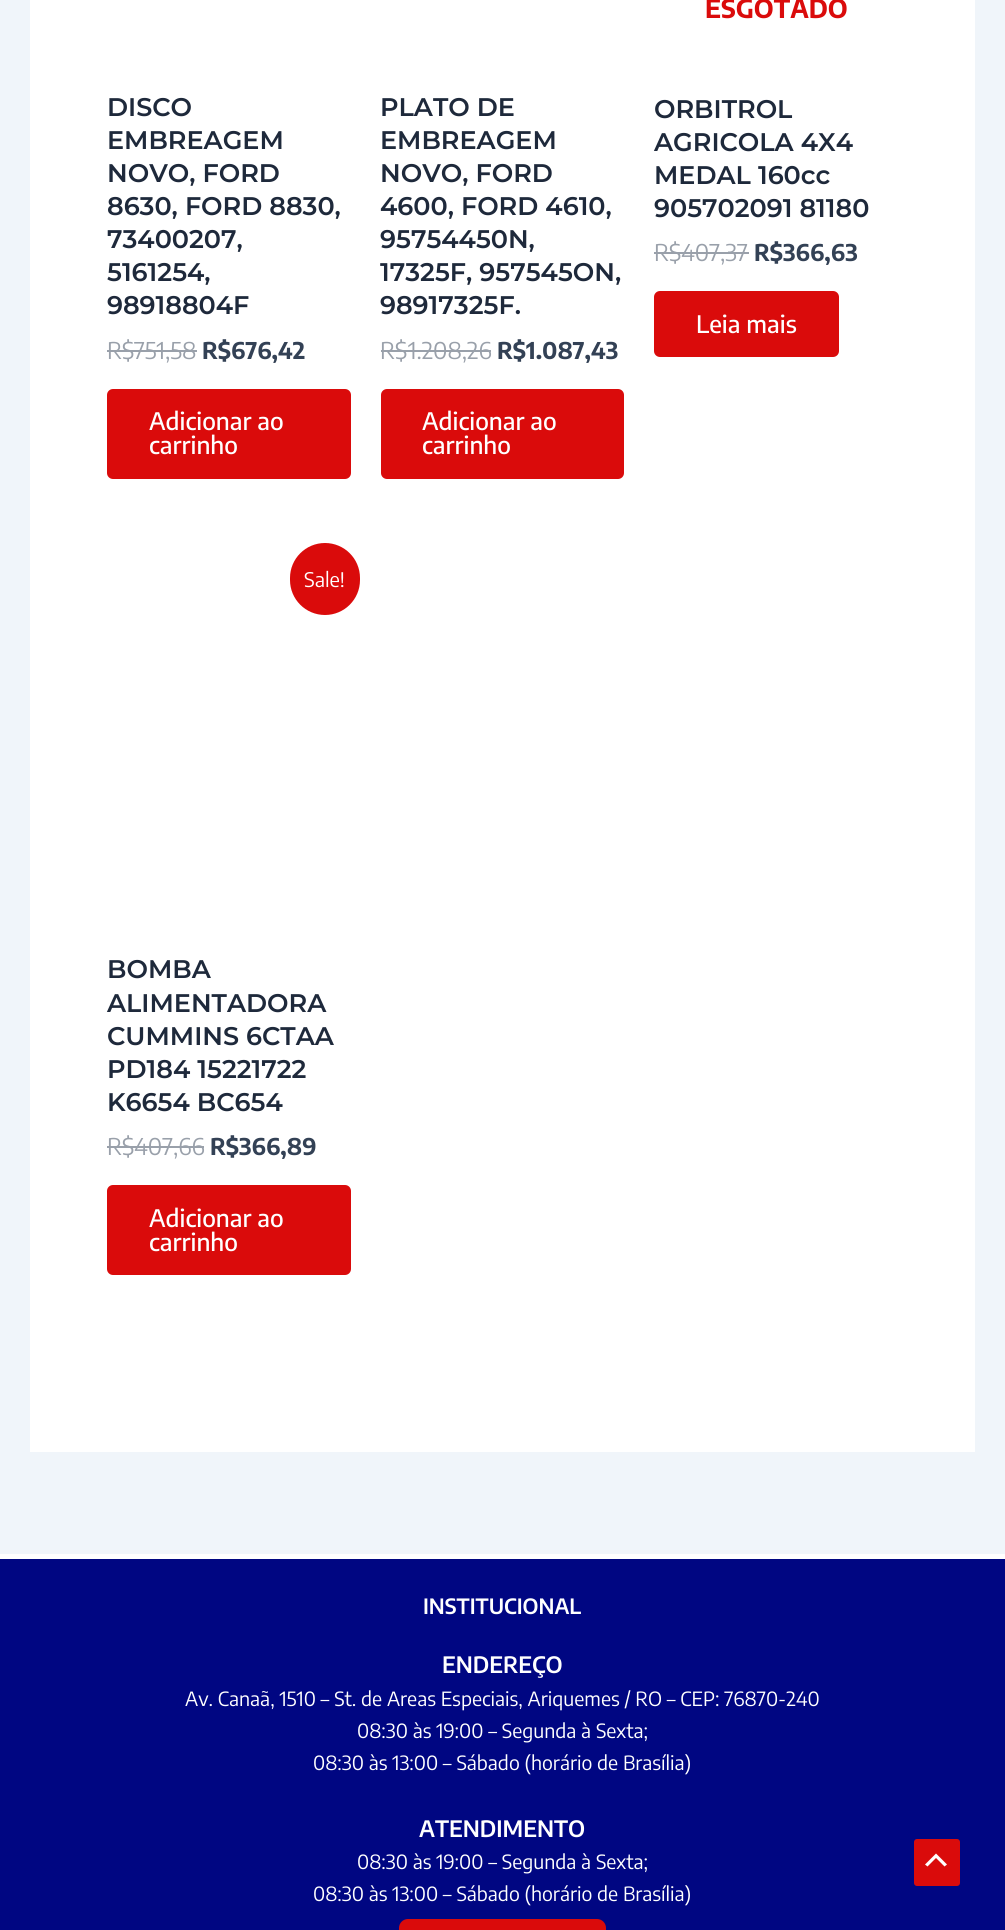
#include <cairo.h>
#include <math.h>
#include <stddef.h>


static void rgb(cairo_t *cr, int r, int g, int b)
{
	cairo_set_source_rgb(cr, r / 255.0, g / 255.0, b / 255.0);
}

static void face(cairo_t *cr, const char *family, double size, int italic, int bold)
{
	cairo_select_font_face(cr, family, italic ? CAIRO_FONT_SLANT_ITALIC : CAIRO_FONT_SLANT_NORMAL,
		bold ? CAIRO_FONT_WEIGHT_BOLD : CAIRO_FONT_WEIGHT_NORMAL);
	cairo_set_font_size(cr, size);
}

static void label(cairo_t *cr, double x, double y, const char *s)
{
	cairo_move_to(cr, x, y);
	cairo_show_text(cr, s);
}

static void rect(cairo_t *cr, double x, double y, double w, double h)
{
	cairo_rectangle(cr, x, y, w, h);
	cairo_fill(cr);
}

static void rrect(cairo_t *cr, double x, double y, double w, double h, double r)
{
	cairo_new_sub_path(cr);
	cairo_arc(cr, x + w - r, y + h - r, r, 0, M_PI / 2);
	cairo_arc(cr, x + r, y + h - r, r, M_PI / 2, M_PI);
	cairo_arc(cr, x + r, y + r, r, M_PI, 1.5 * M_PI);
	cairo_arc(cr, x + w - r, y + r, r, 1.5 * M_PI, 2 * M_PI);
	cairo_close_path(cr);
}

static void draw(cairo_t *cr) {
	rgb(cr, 240, 245, 250);
	cairo_paint(cr);
	rgb(cr, 255, 255, 255);
	rect(cr, 30, 0, 945, 1452);
	face(cr, "Montserrat SemiBold", 25.5, 0, 0);
	rgb(cr, 30, 41, 59);
	label(cr, 107, 116, "DISCO");
	label(cr, 107, 149, "EMBREAGEM");
	label(cr, 107, 182, "NOVO, FORD");
	label(cr, 107, 215, "8630, FORD 8830,");
	label(cr, 107, 248, "73400207,");
	label(cr, 107, 281, "5161254,");
	label(cr, 107, 314, "98918804F");
	face(cr, "Encode Sans Condensed", 23, 0, 0);
	rgb(cr, 153, 160, 170);
	label(cr, 107, 359, "R$");
	rect(cr, 107, 350, 27, 2);
	rect(cr, 134, 350, 63, 2);
	label(cr, 134, 359, "751,58");
	face(cr, "Encode Sans Condensed", 23, 0, 1);
	rgb(cr, 51, 65, 85);
	label(cr, 202, 359, "R$676,42");
	rgb(cr, 218, 11, 11);
	rrect(cr, 107, 389, 244, 90, 6);
	cairo_fill(cr);
	face(cr, "Encode Sans Condensed Medium", 24, 0, 0);
	rgb(cr, 255, 255, 255);
	label(cr, 149, 430, "Adicionar ao");
	label(cr, 149, 454, "carrinho");
	face(cr, "Montserrat SemiBold", 25.5, 0, 0);
	rgb(cr, 30, 41, 59);
	label(cr, 380, 116, "PLATO DE");
	label(cr, 380, 149, "EMBREAGEM");
	label(cr, 380, 182, "NOVO, FORD");
	label(cr, 380, 215, "4600, FORD 4610,");
	label(cr, 380, 248, "95754450N,");
	label(cr, 380, 281, "17325F, 957545ON,");
	label(cr, 380, 314, "98917325F.");
	face(cr, "Encode Sans Condensed", 23, 0, 0);
	rgb(cr, 153, 160, 170);
	label(cr, 380, 359, "R$");
	rect(cr, 381, 350, 27, 2);
	rect(cr, 408, 350, 83, 2);
	label(cr, 408, 359, "1.208,26");
	face(cr, "Encode Sans Condensed", 23, 0, 1);
	rgb(cr, 51, 65, 85);
	label(cr, 497, 359, "R$1.087,43");
	rgb(cr, 218, 11, 11);
	rrect(cr, 381, 389, 243, 90, 6);
	cairo_fill(cr);
	face(cr, "Encode Sans Condensed Medium", 24, 0, 0);
	rgb(cr, 255, 255, 255);
	label(cr, 422, 430, "Adicionar ao");
	label(cr, 422, 454, "carrinho");
	face(cr, "Encode Sans Condensed", 25.5, 0, 1);
	rgb(cr, 218, 11, 11);
	label(cr, 705, 18, "ESGOTADO");
	face(cr, "Montserrat SemiBold", 25.5, 0, 0);
	rgb(cr, 30, 41, 59);
	label(cr, 654, 118, "ORBITROL");
	label(cr, 654, 151, "AGRICOLA 4X4");
	label(cr, 654, 184, "MEDAL 160cc");
	label(cr, 654, 217, "905702091 81180");
	face(cr, "Encode Sans Condensed", 23, 0, 0);
	rgb(cr, 153, 160, 170);
	label(cr, 654, 261, "R$407,37");
	rect(cr, 654, 252, 95, 2);
	face(cr, "Encode Sans Condensed", 23, 0, 1);
	rgb(cr, 51, 65, 85);
	label(cr, 754, 261, "R$366,63");
	rgb(cr, 218, 11, 11);
	rrect(cr, 654, 291, 185, 66, 6);
	cairo_fill(cr);
	face(cr, "Encode Sans Condensed Medium", 24, 0, 0);
	rgb(cr, 255, 255, 255);
	label(cr, 696, 333, "Leia mais");
	rgb(cr, 218, 11, 11);
	rrect(cr, 290, 543, 70, 72, 35);
	cairo_fill(cr);
	face(cr, "Encode Sans Condensed", 20, 0, 0);
	rgb(cr, 255, 255, 255);
	label(cr, 304, 587, "Sale!");
	face(cr, "Montserrat SemiBold", 25.5, 0, 0);
	rgb(cr, 30, 41, 59);
	label(cr, 107, 978, "BOMBA");
	label(cr, 107, 1012, "ALIMENTADORA");
	label(cr, 107, 1045, "CUMMINS 6CTAA");
	label(cr, 107, 1078, "PD184 15221722");
	label(cr, 107, 1111, "K6654 BC654");
	face(cr, "Encode Sans Condensed", 23, 0, 0);
	rgb(cr, 153, 160, 170);
	label(cr, 107, 1155, "R$407,66");
	rect(cr, 107, 1146, 97, 2);
	face(cr, "Encode Sans Condensed", 23, 0, 1);
	rgb(cr, 51, 65, 85);
	label(cr, 210, 1155, "R$366,89");
	rgb(cr, 218, 11, 11);
	rrect(cr, 107, 1185, 244, 90, 6);
	cairo_fill(cr);
	face(cr, "Encode Sans Condensed Medium", 24, 0, 0);
	rgb(cr, 255, 255, 255);
	label(cr, 149, 1227, "Adicionar ao");
	label(cr, 149, 1251, "carrinho");
	rgb(cr, 0, 6, 130);
	rect(cr, 0, 1559, 1005, 371);
	rgb(cr, 255, 255, 255);
	rect(cr, 0, 1554, 1005, 5);
	face(cr, "Encode Sans Condensed SemiBold", 21, 0, 0);
	label(cr, 423, 1614, "INSTITUCIONAL");
	face(cr, "Encode Sans Condensed SemiBold", 22.5, 0, 0);
	label(cr, 442, 1673, "ENDEREÇO");
	face(cr, "Encode Sans Condensed", 19.5, 0, 0);
	label(cr, 185, 1706, "Av. Canaã, 1510 – St. de Areas Especiais, Ariquemes / RO – CEP: 76870-240");
	label(cr, 357, 1738, "08:30 às 19:00 – Segunda à Sexta;");
	label(cr, 313, 1770, "08:30 às 13:00 – Sábado (horário de Brasília)");
	face(cr, "Encode Sans Condensed SemiBold", 22.5, 0, 0);
	label(cr, 419, 1837, "ATENDIMENTO");
	face(cr, "Encode Sans Condensed", 19.5, 0, 0);
	label(cr, 357, 1869, "08:30 às 19:00 – Segunda à Sexta;");
	label(cr, 313, 1901, "08:30 às 13:00 – Sábado (horário de Brasília)");
	rgb(cr, 218, 11, 11);
	rrect(cr, 399, 1919, 207, 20, 9);
	cairo_fill(cr);
	rrect(cr, 914, 1839, 46, 47, 3);
	cairo_fill(cr);
	rgb(cr, 255, 255, 255);
	cairo_new_path(cr);
	cairo_move_to(cr, 947, 1864.5);
	cairo_line_to(cr, 936, 1853.5);
	cairo_line_to(cr, 925, 1864.5);
	cairo_line_to(cr, 927.5, 1866.5);
	cairo_line_to(cr, 936, 1858);
	cairo_line_to(cr, 944.5, 1866.5);
	cairo_close_path(cr);
	cairo_fill(cr);
}

int main(void) {
	cairo_surface_t *surface = cairo_image_surface_create(CAIRO_FORMAT_RGB24, 1005, 1930);
	cairo_t *cr = cairo_create(surface);
	cairo_font_options_t *options = cairo_font_options_create();
	cairo_font_options_set_hint_metrics(options, CAIRO_HINT_METRICS_OFF);
	cairo_font_options_set_hint_style(options, CAIRO_HINT_STYLE_NONE);
	cairo_set_font_options(cr, options);
	cairo_set_miter_limit(cr, 4);
	draw(cr);
	cairo_surface_write_to_png(surface, "render.png");
	cairo_font_options_destroy(options);
	cairo_destroy(cr);
	cairo_surface_destroy(surface);
	return 0;
}
